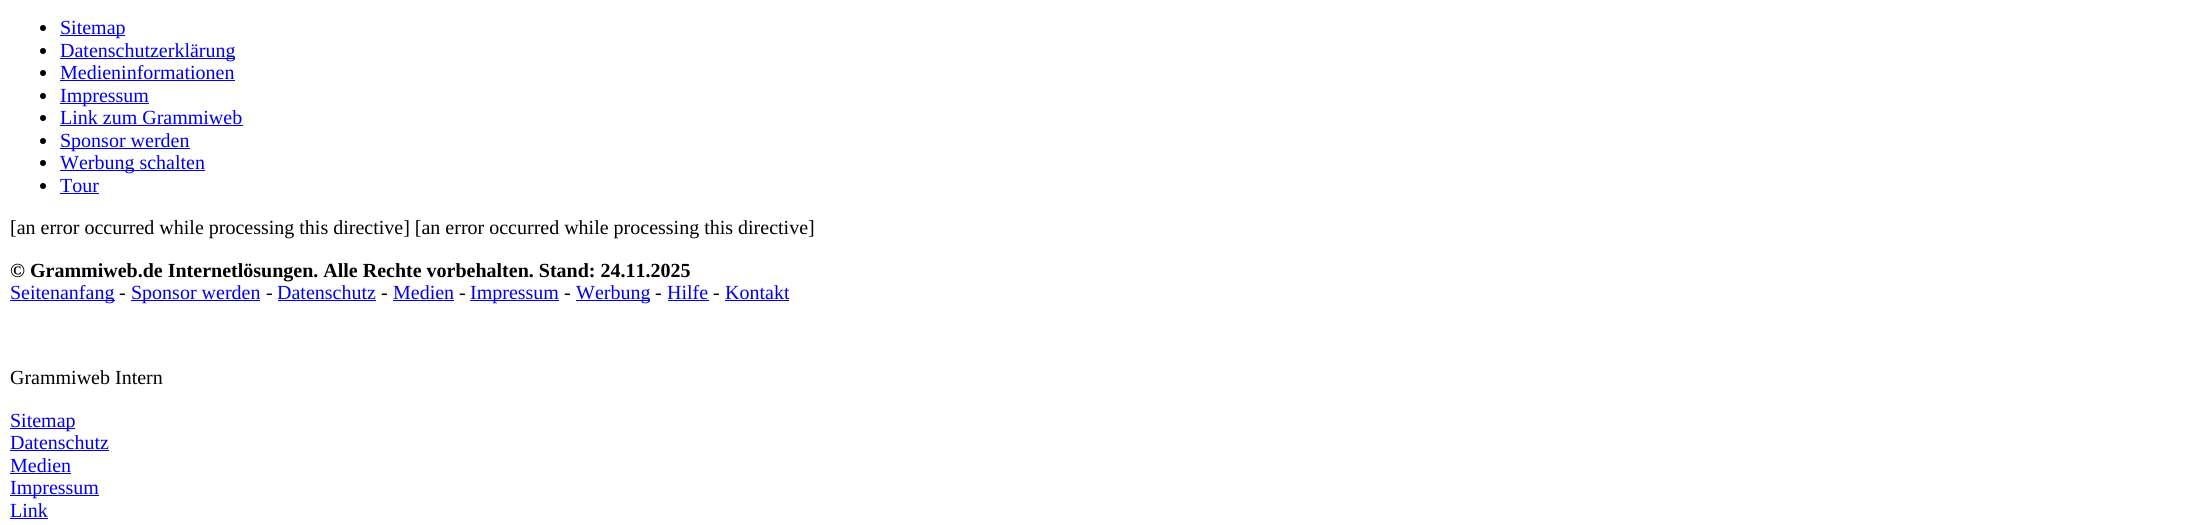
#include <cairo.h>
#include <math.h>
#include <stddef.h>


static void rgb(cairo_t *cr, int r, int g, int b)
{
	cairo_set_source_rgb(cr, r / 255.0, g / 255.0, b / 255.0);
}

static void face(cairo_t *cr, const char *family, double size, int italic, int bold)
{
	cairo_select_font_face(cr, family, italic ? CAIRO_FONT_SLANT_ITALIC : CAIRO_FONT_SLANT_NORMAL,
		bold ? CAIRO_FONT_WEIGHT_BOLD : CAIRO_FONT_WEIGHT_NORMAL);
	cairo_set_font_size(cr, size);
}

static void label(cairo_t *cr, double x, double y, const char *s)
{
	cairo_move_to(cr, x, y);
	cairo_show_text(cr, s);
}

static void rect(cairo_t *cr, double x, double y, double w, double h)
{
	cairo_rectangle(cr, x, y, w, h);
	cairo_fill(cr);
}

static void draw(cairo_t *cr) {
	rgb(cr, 255, 255, 255);
	cairo_paint(cr);
	rgb(cr, 0, 0, 0);
	cairo_arc(cr, 43, 28, 3, 0, 2 * M_PI);
	cairo_fill(cr);
	rgb(cr, 0, 0, 238);
	rect(cr, 60, 35, 65, 1);
	face(cr, "Liberation Serif", 20, 0, 0);
	label(cr, 60, 34, "Sitemap");
	rgb(cr, 0, 0, 0);
	cairo_new_path(cr);
	cairo_arc(cr, 43, 51, 3, 0, 2 * M_PI);
	cairo_fill(cr);
	rgb(cr, 0, 0, 238);
	rect(cr, 60, 58, 175, 1);
	label(cr, 60, 57, "Datenschutzerklärung");
	rgb(cr, 0, 0, 0);
	cairo_new_path(cr);
	cairo_arc(cr, 43, 73, 3, 0, 2 * M_PI);
	cairo_fill(cr);
	rgb(cr, 0, 0, 238);
	label(cr, 60, 79, "Medieninformationen");
	rect(cr, 60, 80, 175, 1);
	rgb(cr, 0, 0, 0);
	cairo_new_path(cr);
	cairo_arc(cr, 43, 96, 3, 0, 2 * M_PI);
	cairo_fill(cr);
	rgb(cr, 0, 0, 238);
	rect(cr, 60, 103, 89, 1);
	label(cr, 60, 102, "Impressum");
	rgb(cr, 0, 0, 0);
	cairo_new_path(cr);
	cairo_arc(cr, 43, 118, 3, 0, 2 * M_PI);
	cairo_fill(cr);
	rgb(cr, 0, 0, 238);
	label(cr, 60, 124, "Link zum Grammiweb");
	rect(cr, 60, 125, 183, 1);
	rgb(cr, 0, 0, 0);
	cairo_new_path(cr);
	cairo_arc(cr, 43, 141, 3, 0, 2 * M_PI);
	cairo_fill(cr);
	rgb(cr, 0, 0, 238);
	rect(cr, 60, 148, 130, 1);
	label(cr, 60, 147, "Sponsor werden");
	rgb(cr, 0, 0, 0);
	cairo_new_path(cr);
	cairo_arc(cr, 43, 163, 3, 0, 2 * M_PI);
	cairo_fill(cr);
	rgb(cr, 0, 0, 238);
	rect(cr, 60, 170, 145, 1);
	label(cr, 60, 169, "Werbung schalten");
	rgb(cr, 0, 0, 0);
	cairo_new_path(cr);
	cairo_arc(cr, 43, 186, 3, 0, 2 * M_PI);
	cairo_fill(cr);
	rgb(cr, 0, 0, 238);
	label(cr, 60, 192, "Tour");
	rect(cr, 60, 193, 39, 1);
	rgb(cr, 0, 0, 0);
	label(cr, 10, 234, "[an error occurred while processing this directive] [an error occurred while processing this directive]");
	face(cr, "Liberation Serif", 20, 0, 1);
	label(cr, 10, 277, "© Grammiweb.de Internetlösungen. Alle Rechte vorbehalten. Stand: 24.11.2025");
	rgb(cr, 0, 0, 238);
	rect(cr, 10, 300, 105, 1);
	face(cr, "Liberation Serif", 20, 0, 0);
	label(cr, 10, 299, "Seitenanfang");
	rgb(cr, 0, 0, 0);
	label(cr, 119, 299, "-");
	rgb(cr, 0, 0, 238);
	rect(cr, 131, 300, 129, 1);
	label(cr, 131, 299, "Sponsor werden");
	rgb(cr, 0, 0, 0);
	label(cr, 266, 299, "-");
	rgb(cr, 0, 0, 238);
	label(cr, 277, 299, "Datenschutz");
	rect(cr, 278, 300, 98, 1);
	rgb(cr, 0, 0, 0);
	label(cr, 381, 299, "-");
	rgb(cr, 0, 0, 238);
	label(cr, 393, 299, "Medien");
	rect(cr, 393, 300, 61, 1);
	rgb(cr, 0, 0, 0);
	label(cr, 459, 299, "-");
	rgb(cr, 0, 0, 238);
	rect(cr, 470, 300, 89, 1);
	label(cr, 470, 299, "Impressum");
	rgb(cr, 0, 0, 0);
	label(cr, 564, 299, "-");
	rgb(cr, 0, 0, 238);
	rect(cr, 576, 300, 74, 1);
	label(cr, 576, 299, "Werbung");
	rgb(cr, 0, 0, 0);
	label(cr, 655, 299, "-");
	rgb(cr, 0, 0, 238);
	label(cr, 667, 299, "Hilfe");
	rect(cr, 668, 300, 41, 1);
	rgb(cr, 0, 0, 0);
	label(cr, 713, 299, "-");
	rgb(cr, 0, 0, 238);
	label(cr, 725, 299, "Kontakt");
	rect(cr, 725, 300, 64, 1);
	rgb(cr, 0, 0, 0);
	label(cr, 10, 384, "Grammiweb Intern");
	rgb(cr, 0, 0, 238);
	rect(cr, 10, 428, 65, 1);
	label(cr, 10, 427, "Sitemap");
	label(cr, 10, 449, "Datenschutz");
	rect(cr, 10, 450, 99, 1);
	label(cr, 10, 472, "Medien");
	rect(cr, 10, 473, 61, 1);
	rect(cr, 10, 495, 89, 1);
	label(cr, 10, 494, "Impressum");
	label(cr, 10, 517, "Link");
	rect(cr, 10, 518, 38, 1);
}

int main(void) {
	cairo_surface_t *surface = cairo_image_surface_create(CAIRO_FORMAT_RGB24, 2206, 525);
	cairo_t *cr = cairo_create(surface);
	cairo_font_options_t *options = cairo_font_options_create();
	cairo_font_options_set_hint_metrics(options, CAIRO_HINT_METRICS_OFF);
	cairo_font_options_set_hint_style(options, CAIRO_HINT_STYLE_NONE);
	cairo_set_font_options(cr, options);
	cairo_set_miter_limit(cr, 4);
	draw(cr);
	cairo_surface_write_to_png(surface, "render.png");
	cairo_font_options_destroy(options);
	cairo_destroy(cr);
	cairo_surface_destroy(surface);
	return 0;
}
